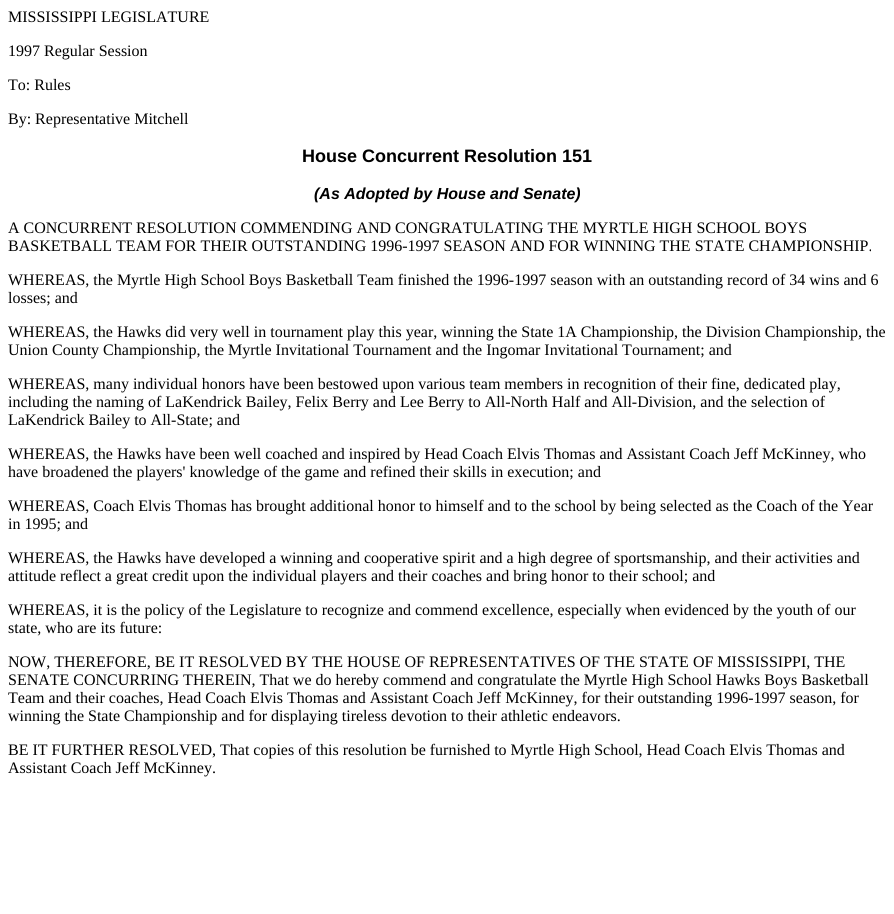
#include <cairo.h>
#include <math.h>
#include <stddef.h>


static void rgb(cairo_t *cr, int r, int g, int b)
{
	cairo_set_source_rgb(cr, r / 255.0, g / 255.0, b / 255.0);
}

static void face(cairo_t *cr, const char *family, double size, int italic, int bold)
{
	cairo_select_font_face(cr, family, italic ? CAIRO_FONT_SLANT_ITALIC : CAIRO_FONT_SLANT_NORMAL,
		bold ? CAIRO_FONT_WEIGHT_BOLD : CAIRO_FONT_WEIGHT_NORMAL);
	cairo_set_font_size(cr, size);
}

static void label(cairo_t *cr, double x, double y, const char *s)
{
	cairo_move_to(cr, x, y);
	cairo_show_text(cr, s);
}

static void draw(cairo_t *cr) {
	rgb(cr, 255, 255, 255);
	cairo_paint(cr);
	face(cr, "Liberation Serif", 16, 0, 0);
	rgb(cr, 0, 0, 0);
	label(cr, 8, 22, "MISSISSIPPI LEGISLATURE");
	label(cr, 8, 56, "1997 Regular Session");
	label(cr, 8, 90, "To: Rules");
	label(cr, 8, 124, "By: Representative Mitchell");
	face(cr, "Liberation Sans", 18, 0, 1);
	label(cr, 302, 162, "House Concurrent Resolution 151");
	face(cr, "Liberation Sans", 16, 1, 1);
	label(cr, 314, 199, "(As Adopted by House and Senate)");
	face(cr, "Liberation Serif", 16, 0, 0);
	label(cr, 8, 233, "A CONCURRENT RESOLUTION COMMENDING AND CONGRATULATING THE MYRTLE HIGH SCHOOL BOYS");
	label(cr, 8, 251, "BASKETBALL TEAM FOR THEIR OUTSTANDING 1996-1997 SEASON AND FOR WINNING THE STATE CHAMPIONSHIP.");
	label(cr, 8, 285, "WHEREAS, the Myrtle High School Boys Basketball Team finished the 1996-1997 season with an outstanding record of 34 wins and 6");
	label(cr, 8, 303, "losses; and");
	label(cr, 8, 337, "WHEREAS, the Hawks did very well in tournament play this year, winning the State 1A Championship, the Division Championship, the");
	label(cr, 8, 355, "Union County Championship, the Myrtle Invitational Tournament and the Ingomar Invitational Tournament; and");
	label(cr, 8, 389, "WHEREAS, many individual honors have been bestowed upon various team members in recognition of their fine, dedicated play,");
	label(cr, 8, 407, "including the naming of LaKendrick Bailey, Felix Berry and Lee Berry to All-North Half and All-Division, and the selection of");
	label(cr, 8, 425, "LaKendrick Bailey to All-State; and");
	label(cr, 8, 459, "WHEREAS, the Hawks have been well coached and inspired by Head Coach Elvis Thomas and Assistant Coach Jeff McKinney, who");
	label(cr, 8, 477, "have broadened the players' knowledge of the game and refined their skills in execution; and");
	label(cr, 8, 511, "WHEREAS, Coach Elvis Thomas has brought additional honor to himself and to the school by being selected as the Coach of the Year");
	label(cr, 8, 529, "in 1995; and");
	label(cr, 8, 563, "WHEREAS, the Hawks have developed a winning and cooperative spirit and a high degree of sportsmanship, and their activities and");
	label(cr, 8, 581, "attitude reflect a great credit upon the individual players and their coaches and bring honor to their school; and");
	label(cr, 8, 615, "WHEREAS, it is the policy of the Legislature to recognize and commend excellence, especially when evidenced by the youth of our");
	label(cr, 8, 633, "state, who are its future:");
	label(cr, 8, 667, "NOW, THEREFORE, BE IT RESOLVED BY THE HOUSE OF REPRESENTATIVES OF THE STATE OF MISSISSIPPI, THE");
	label(cr, 8, 685, "SENATE CONCURRING THEREIN, That we do hereby commend and congratulate the Myrtle High School Hawks Boys Basketball");
	label(cr, 8, 703, "Team and their coaches, Head Coach Elvis Thomas and Assistant Coach Jeff McKinney, for their outstanding 1996-1997 season, for");
	label(cr, 8, 721, "winning the State Championship and for displaying tireless devotion to their athletic endeavors.");
	label(cr, 8, 755, "BE IT FURTHER RESOLVED, That copies of this resolution be furnished to Myrtle High School, Head Coach Elvis Thomas and");
	label(cr, 8, 773, "Assistant Coach Jeff McKinney.");
}

int main(void) {
	cairo_surface_t *surface = cairo_image_surface_create(CAIRO_FORMAT_RGB24, 894, 914);
	cairo_t *cr = cairo_create(surface);
	cairo_font_options_t *options = cairo_font_options_create();
	cairo_font_options_set_hint_metrics(options, CAIRO_HINT_METRICS_OFF);
	cairo_font_options_set_hint_style(options, CAIRO_HINT_STYLE_NONE);
	cairo_set_font_options(cr, options);
	cairo_set_miter_limit(cr, 4);
	draw(cr);
	cairo_surface_write_to_png(surface, "render.png");
	cairo_font_options_destroy(options);
	cairo_destroy(cr);
	cairo_surface_destroy(surface);
	return 0;
}
